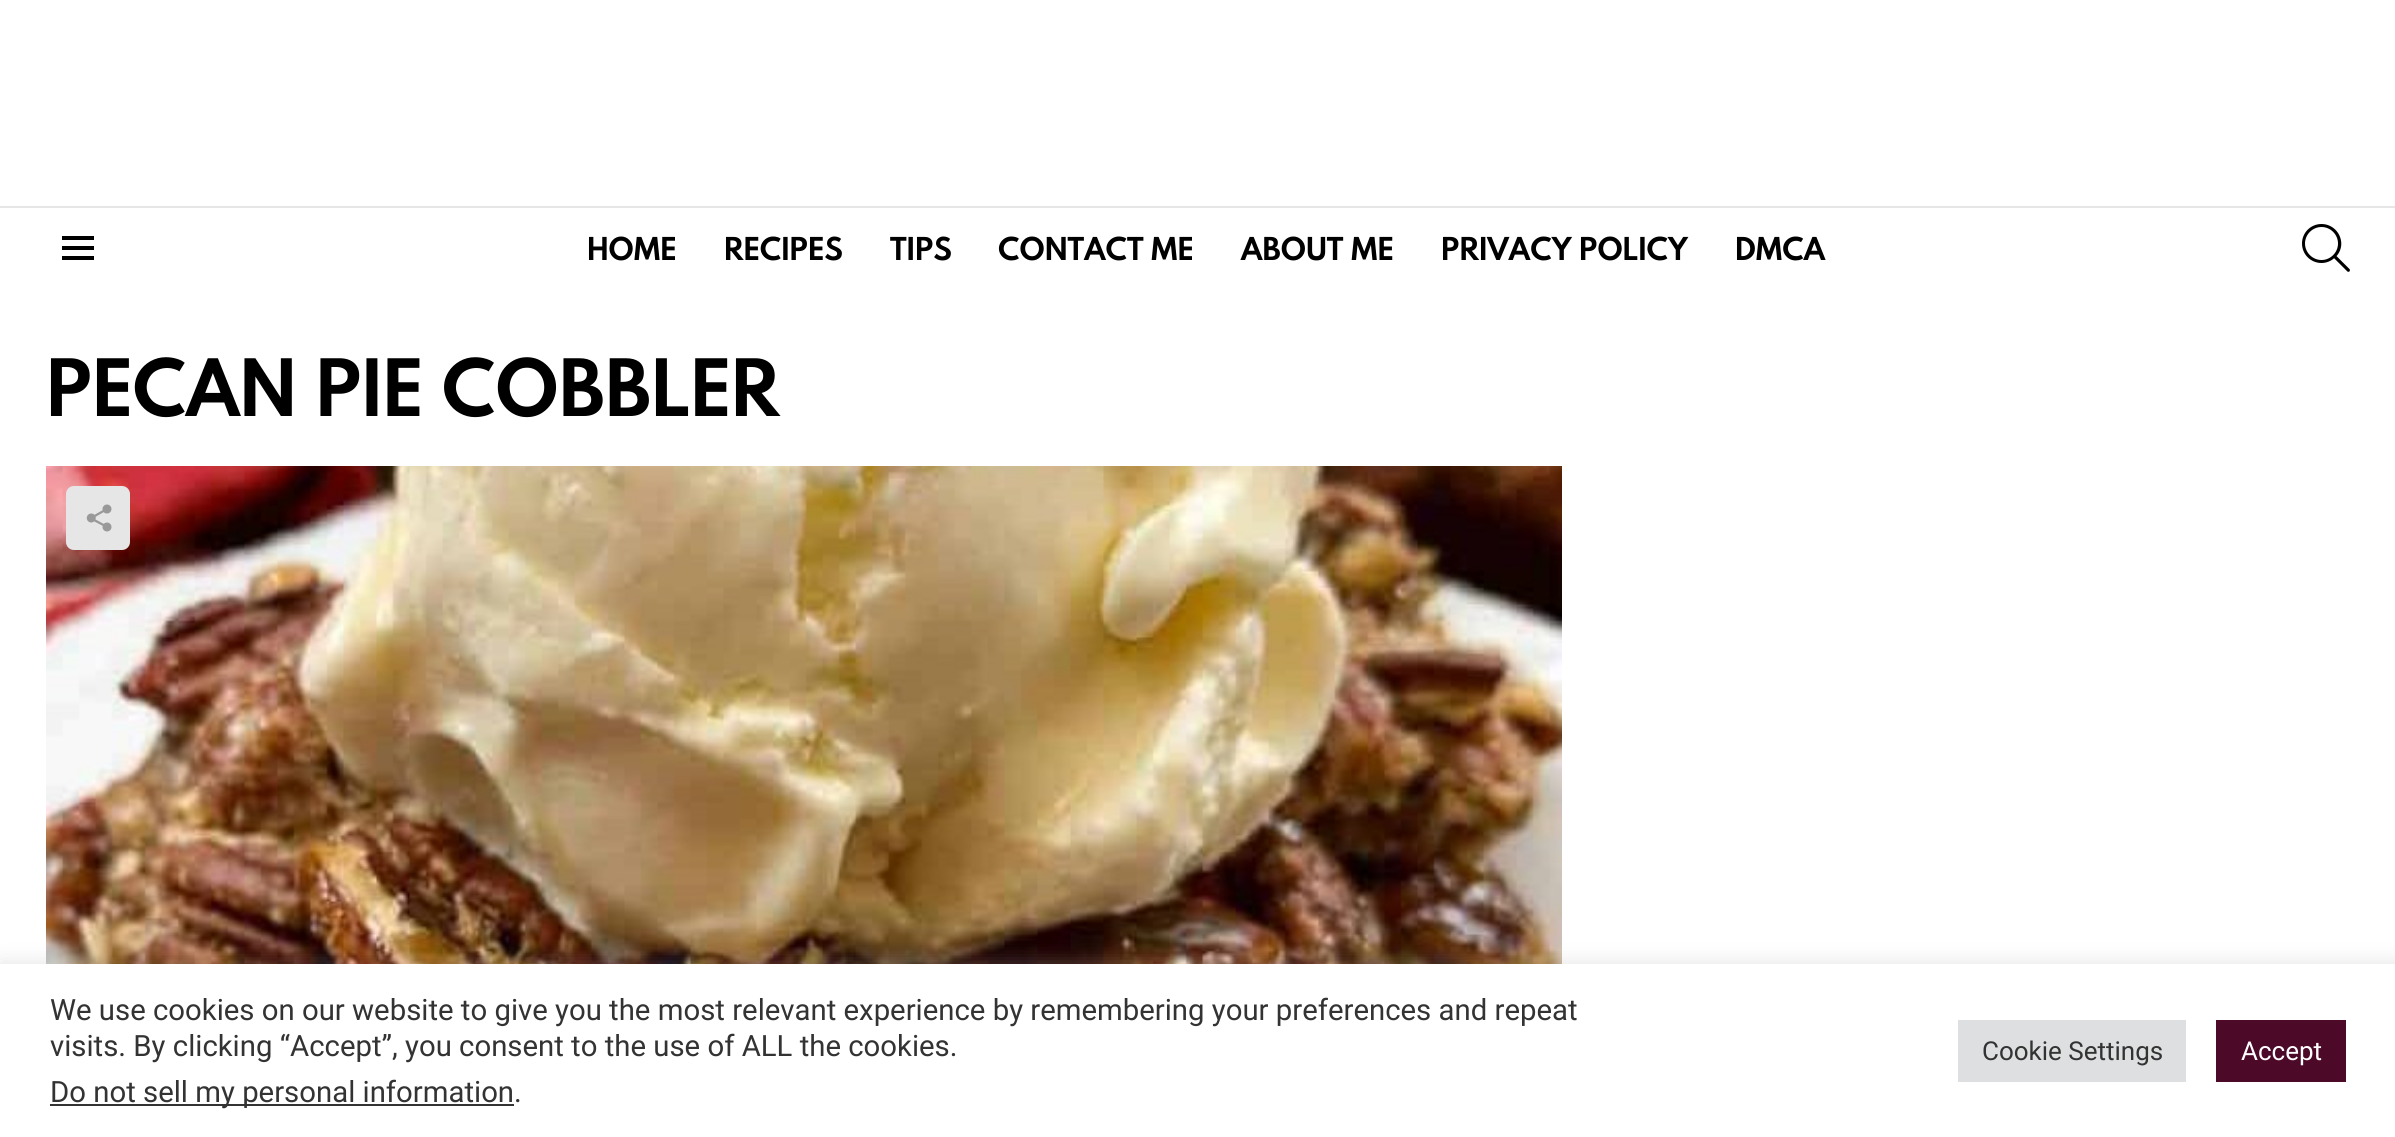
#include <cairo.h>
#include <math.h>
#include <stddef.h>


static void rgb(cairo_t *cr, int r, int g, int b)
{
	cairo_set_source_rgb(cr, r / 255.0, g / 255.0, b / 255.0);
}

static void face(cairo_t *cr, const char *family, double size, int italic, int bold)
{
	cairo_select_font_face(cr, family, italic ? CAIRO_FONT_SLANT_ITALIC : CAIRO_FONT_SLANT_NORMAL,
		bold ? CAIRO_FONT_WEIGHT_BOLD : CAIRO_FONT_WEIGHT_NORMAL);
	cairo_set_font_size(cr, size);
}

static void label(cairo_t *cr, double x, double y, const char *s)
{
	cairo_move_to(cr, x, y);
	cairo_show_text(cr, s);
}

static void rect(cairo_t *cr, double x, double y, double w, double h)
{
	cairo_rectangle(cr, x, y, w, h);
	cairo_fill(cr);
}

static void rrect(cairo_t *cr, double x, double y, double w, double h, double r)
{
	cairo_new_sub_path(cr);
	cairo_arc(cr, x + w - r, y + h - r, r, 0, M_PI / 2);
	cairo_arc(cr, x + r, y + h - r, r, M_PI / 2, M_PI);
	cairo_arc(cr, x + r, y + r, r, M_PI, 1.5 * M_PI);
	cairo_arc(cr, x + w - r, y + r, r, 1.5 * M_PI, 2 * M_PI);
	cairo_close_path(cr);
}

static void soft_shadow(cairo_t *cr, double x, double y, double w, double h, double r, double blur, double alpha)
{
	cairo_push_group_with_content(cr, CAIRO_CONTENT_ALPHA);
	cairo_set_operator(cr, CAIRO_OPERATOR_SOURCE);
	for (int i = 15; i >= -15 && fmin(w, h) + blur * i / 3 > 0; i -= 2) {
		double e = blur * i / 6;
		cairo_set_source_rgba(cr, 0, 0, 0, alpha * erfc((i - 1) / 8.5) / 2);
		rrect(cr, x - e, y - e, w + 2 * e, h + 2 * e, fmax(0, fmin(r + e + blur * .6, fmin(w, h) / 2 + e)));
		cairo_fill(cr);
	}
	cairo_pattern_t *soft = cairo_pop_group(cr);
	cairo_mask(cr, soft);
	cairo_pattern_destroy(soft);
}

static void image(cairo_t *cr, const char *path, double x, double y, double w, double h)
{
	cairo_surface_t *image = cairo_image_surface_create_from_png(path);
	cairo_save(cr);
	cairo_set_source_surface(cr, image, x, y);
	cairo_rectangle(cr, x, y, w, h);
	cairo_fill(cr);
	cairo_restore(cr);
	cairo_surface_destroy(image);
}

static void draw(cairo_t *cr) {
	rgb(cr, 255, 255, 255);
	cairo_paint(cr);
	rgb(cr, 230, 230, 230);
	rect(cr, 0, 206, 2395, 2);
	image(cr, "image0.png", 62, 236, 32, 24);
	face(cr, "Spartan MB", 28, 0, 1);
	rgb(cr, 0, 0, 0);
	label(cr, 587, 260, "HOME");
	label(cr, 724, 260, "RECIPES");
	label(cr, 890, 260, "TIPS");
	label(cr, 998, 260, "CONTACT ME");
	label(cr, 1241, 260, "ABOUT ME");
	label(cr, 1441, 260, "PRIVACY POLICY");
	label(cr, 1735, 260, "DMCA");
	image(cr, "image1.png", 2302, 224, 48, 48);
	face(cr, "Spartan MB", 70, 0, 1);
	label(cr, 46, 416, "PECAN PIE COBBLER");
	image(cr, "image2.png", 46, 466, 1516, 498);
	rgb(cr, 230, 230, 230);
	rrect(cr, 66, 486, 64, 64, 8);
	cairo_fill(cr);
	image(cr, "image3.png", 86, 504, 26, 28);
	rgb(cr, 172, 171, 171);
	soft_shadow(cr, 0, 962, 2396, 174, 0, 10, 0.3);
	rgb(cr, 255, 255, 255);
	rect(cr, 0, 964, 2395, 173);
	face(cr, "Roboto", 29.33, 0, 0);
	rgb(cr, 51, 51, 51);
	label(cr, 50, 1020, "We use cookies on our website to give you the most relevant experience by remembering your preferences and repeat");
	label(cr, 50, 1056, "visits. By clicking “Accept”, you consent to the use of ALL the cookies.");
	rect(cr, 50, 1104, 464, 2);
	label(cr, 50, 1102, "Do not sell my personal information");
	label(cr, 514, 1102, ".");
	rgb(cr, 222, 223, 224);
	rect(cr, 1958, 1020, 228, 62);
	face(cr, "Roboto", 26, 0, 0);
	rgb(cr, 51, 51, 51);
	label(cr, 1982, 1060, "Cookie Settings");
	rgb(cr, 76, 9, 40);
	rect(cr, 2216, 1020, 130, 62);
	rgb(cr, 255, 255, 255);
	label(cr, 2241, 1060, "Accept");
}

int main(void) {
	cairo_surface_t *surface = cairo_image_surface_create(CAIRO_FORMAT_RGB24, 2395, 1137);
	cairo_t *cr = cairo_create(surface);
	cairo_font_options_t *options = cairo_font_options_create();
	cairo_font_options_set_hint_metrics(options, CAIRO_HINT_METRICS_OFF);
	cairo_font_options_set_hint_style(options, CAIRO_HINT_STYLE_NONE);
	cairo_set_font_options(cr, options);
	cairo_set_miter_limit(cr, 4);
	draw(cr);
	cairo_surface_write_to_png(surface, "render.png");
	cairo_font_options_destroy(options);
	cairo_destroy(cr);
	cairo_surface_destroy(surface);
	return 0;
}
